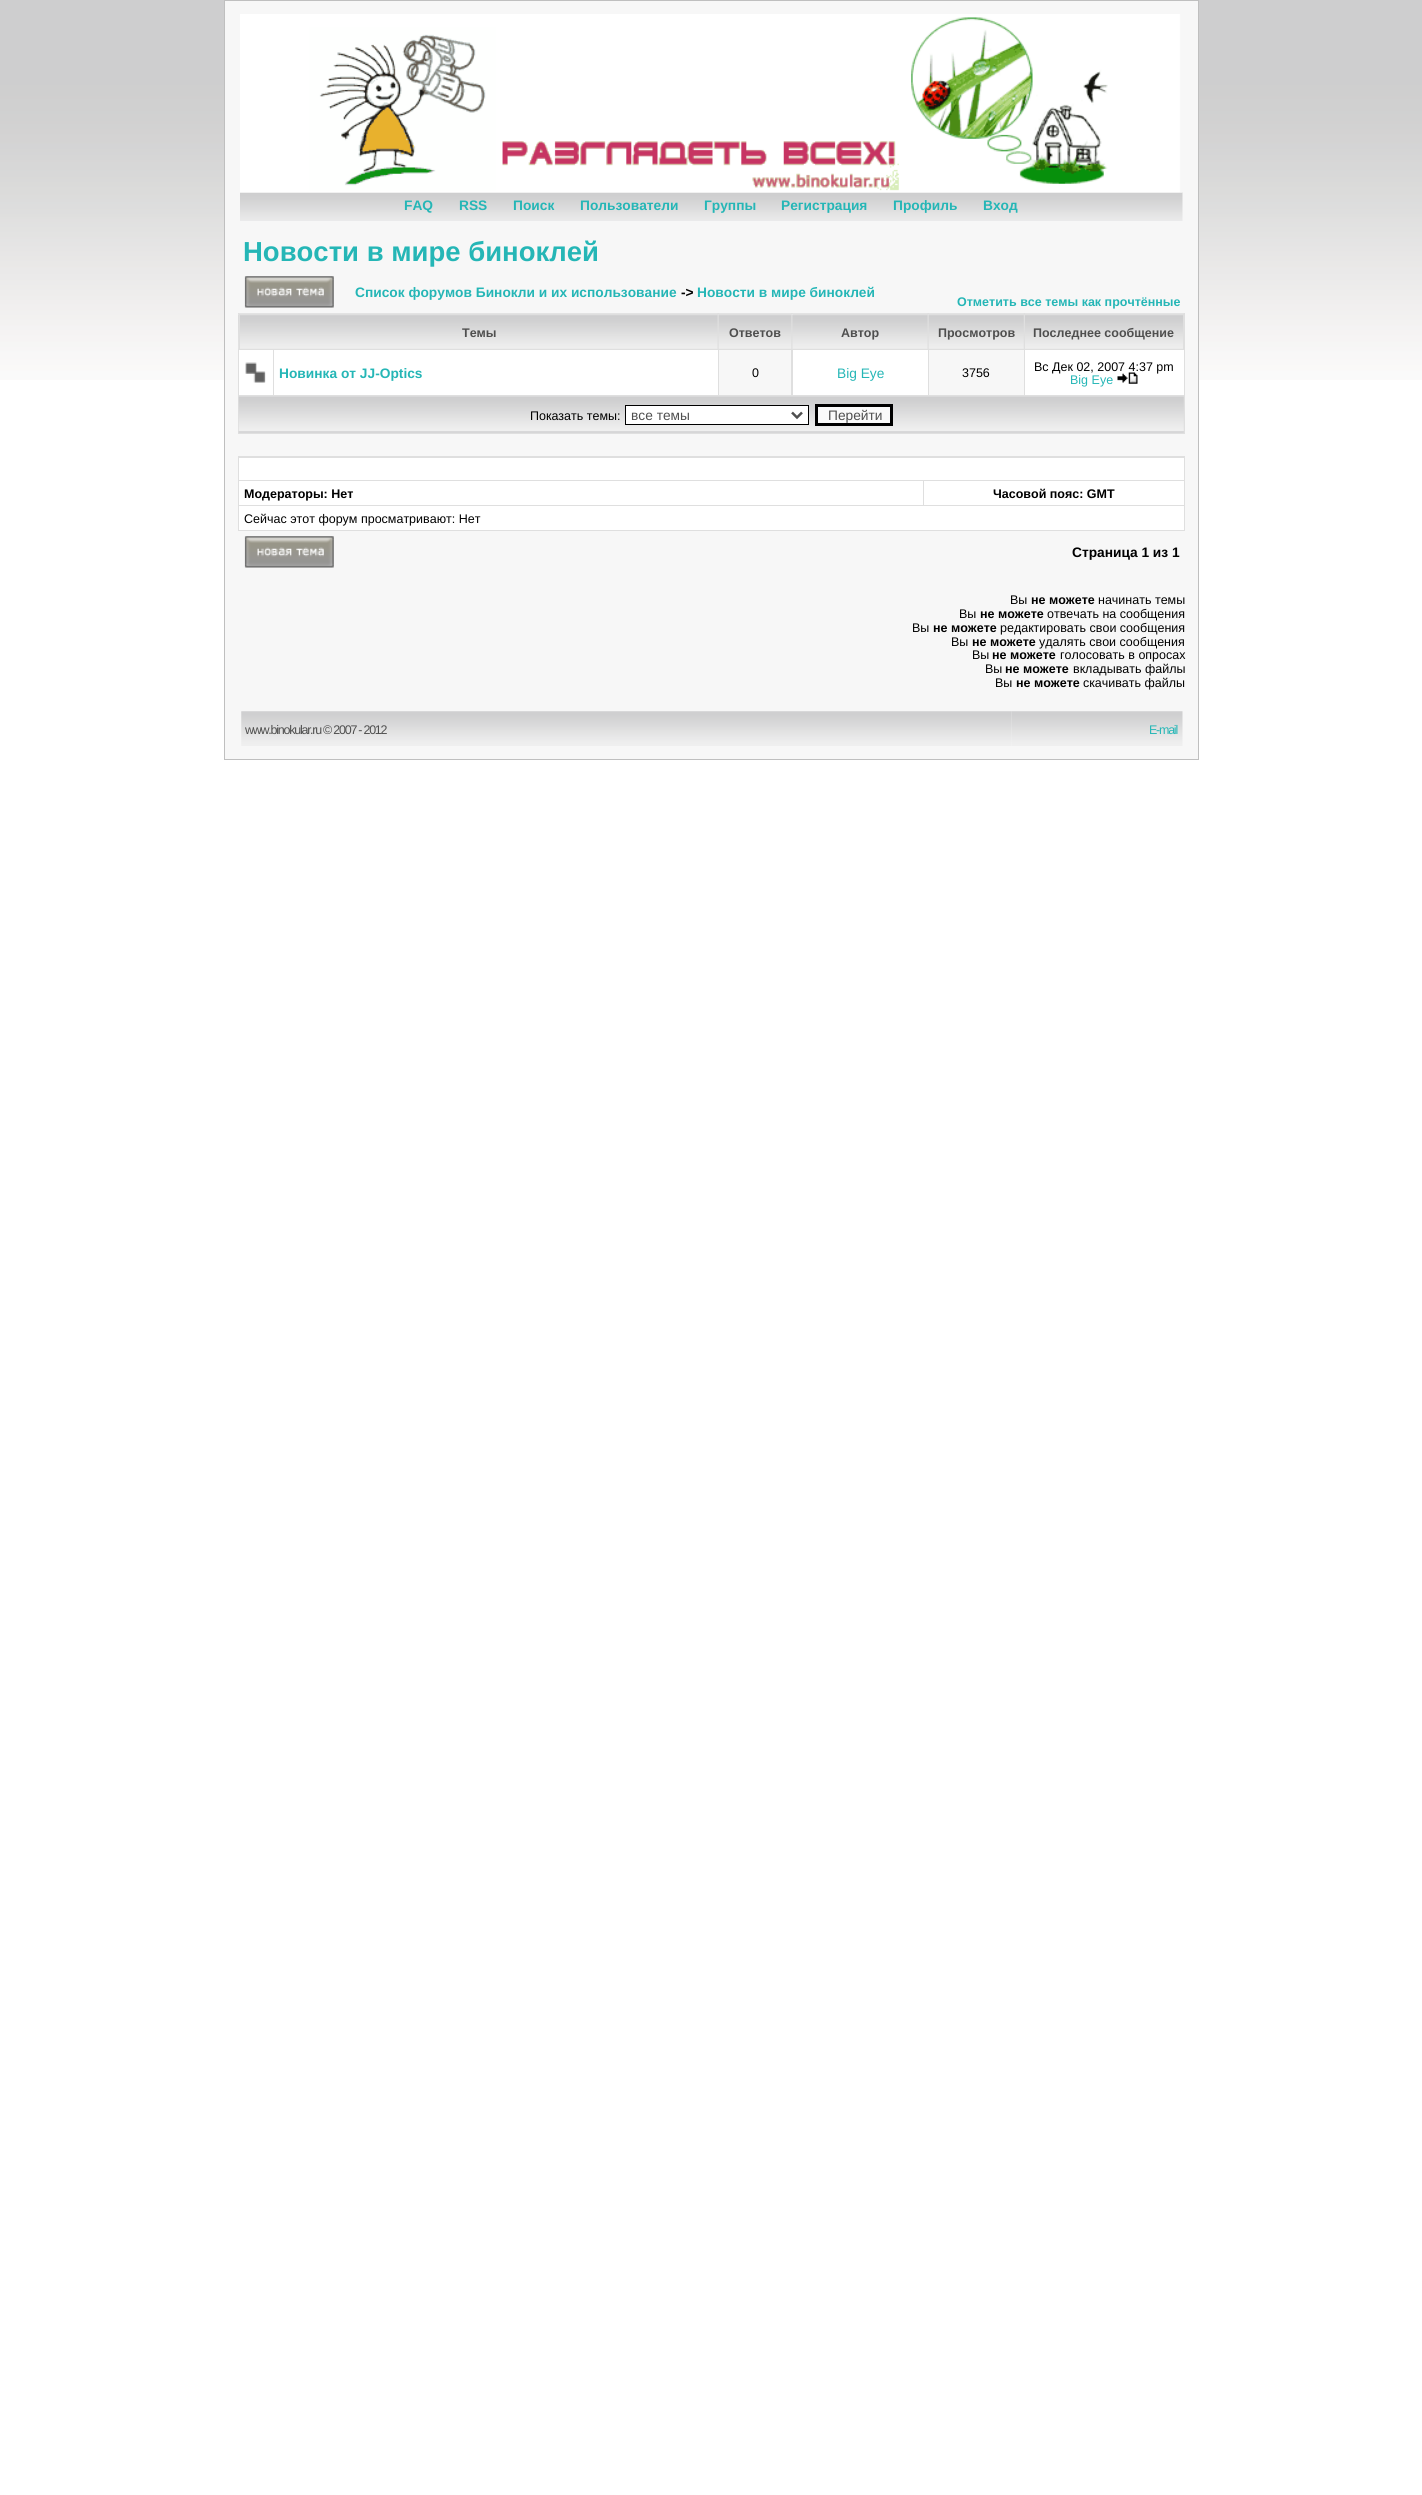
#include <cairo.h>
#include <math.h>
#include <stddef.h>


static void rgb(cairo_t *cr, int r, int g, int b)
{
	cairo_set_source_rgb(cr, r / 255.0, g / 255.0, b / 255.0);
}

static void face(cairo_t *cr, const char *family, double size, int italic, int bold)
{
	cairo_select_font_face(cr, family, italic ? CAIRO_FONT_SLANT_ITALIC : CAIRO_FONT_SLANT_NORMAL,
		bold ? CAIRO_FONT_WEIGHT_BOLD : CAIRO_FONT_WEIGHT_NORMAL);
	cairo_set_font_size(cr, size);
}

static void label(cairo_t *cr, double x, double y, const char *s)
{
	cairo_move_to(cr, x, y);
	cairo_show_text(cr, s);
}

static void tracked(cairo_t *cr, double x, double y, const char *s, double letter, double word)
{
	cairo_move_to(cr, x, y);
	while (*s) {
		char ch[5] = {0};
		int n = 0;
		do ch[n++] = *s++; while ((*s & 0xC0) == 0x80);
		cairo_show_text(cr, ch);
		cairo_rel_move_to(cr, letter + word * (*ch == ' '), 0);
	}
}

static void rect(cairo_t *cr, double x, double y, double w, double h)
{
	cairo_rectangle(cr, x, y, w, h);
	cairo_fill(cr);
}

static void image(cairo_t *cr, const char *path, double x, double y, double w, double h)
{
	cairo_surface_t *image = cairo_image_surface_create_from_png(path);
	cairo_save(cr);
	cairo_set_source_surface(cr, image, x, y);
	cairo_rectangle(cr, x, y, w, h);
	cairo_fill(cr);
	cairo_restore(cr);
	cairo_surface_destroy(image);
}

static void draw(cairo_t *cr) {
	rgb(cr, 255, 255, 255);
	cairo_paint(cr);
	image(cr, "image0.png", 0, 0, 1422, 380);
	rgb(cr, 247, 247, 247);
	cairo_rectangle(cr, 224.5, 0.5, 974, 759);
	cairo_fill_preserve(cr);
	rgb(cr, 191, 191, 191);
	cairo_set_line_width(cr, 1);
	cairo_stroke(cr);
	image(cr, "image2.png", 240, 192, 943, 29);
	image(cr, "image1.png", 240, 14, 942, 179);
	face(cr, "Liberation Sans", 13.75, 0, 1);
	rgb(cr, 37, 182, 182);
	label(cr, 404, 210, "FAQ");
	label(cr, 459, 210, "RSS");
	label(cr, 513, 210, "Поиск");
	label(cr, 580, 210, "Пользователи");
	label(cr, 704, 210, "Группы");
	label(cr, 781, 210, "Регистрация");
	label(cr, 893, 210, "Профиль");
	label(cr, 983, 210, "Вход");
	face(cr, "Liberation Sans", 27.5, 0, 1);
	label(cr, 243, 261, "Новости в мире биноклей");
	image(cr, "image3.png", 244, 276, 90, 32);
	face(cr, "Liberation Sans", 13.75, 0, 1);
	label(cr, 355, 297, "Список форумов Бинокли и их использование");
	rgb(cr, 0, 0, 0);
	label(cr, 681, 297, "->");
	rgb(cr, 37, 182, 182);
	label(cr, 697, 297, "Новости в мире биноклей");
	face(cr, "Liberation Sans", 12.5, 0, 1);
	label(cr, 957, 306, "Отметить все темы как прочтённые");
	rgb(cr, 223, 223, 223);
	rect(cr, 238, 313, 947, 121);
	image(cr, "image4.png", 238, 313, 480, 36);
	rect(cr, 239, 314, 479, 1);
	rect(cr, 239, 314, 1, 35);
	rgb(cr, 79, 79, 79);
	label(cr, 462, 337, "Темы");
	image(cr, "image5.png", 718, 313, 74, 36);
	rgb(cr, 223, 223, 223);
	rect(cr, 719, 314, 72, 1);
	rgb(cr, 79, 79, 79);
	label(cr, 729, 337, "Ответов");
	image(cr, "image6.png", 792, 313, 136, 36);
	rgb(cr, 223, 223, 223);
	rect(cr, 793, 314, 135, 1);
	rgb(cr, 79, 79, 79);
	label(cr, 841, 337, "Автор");
	image(cr, "image7.png", 928, 313, 96, 36);
	rgb(cr, 223, 223, 223);
	rect(cr, 929, 314, 95, 1);
	rgb(cr, 79, 79, 79);
	label(cr, 938, 337, "Просмотров");
	image(cr, "image8.png", 1025, 313, 159, 36);
	rgb(cr, 223, 223, 223);
	rect(cr, 1025, 314, 159, 1);
	rect(cr, 1183, 314, 1, 35);
	rgb(cr, 79, 79, 79);
	label(cr, 1033, 337, "Последнее сообщение");
	rgb(cr, 255, 255, 255);
	rect(cr, 239, 350, 34, 45);
	image(cr, "image9.png", 245, 362, 21, 21);
	rect(cr, 274, 350, 444, 45);
	face(cr, "Liberation Sans", 13.75, 0, 1);
	rgb(cr, 37, 182, 182);
	label(cr, 279, 378, "Новинка от JJ-Optics");
	rgb(cr, 247, 247, 247);
	rect(cr, 719, 350, 72, 45);
	face(cr, "Liberation Sans", 12.5, 0, 0);
	rgb(cr, 0, 0, 0);
	label(cr, 752, 377, "0");
	rgb(cr, 255, 255, 255);
	rect(cr, 793, 350, 135, 45);
	face(cr, "Liberation Sans", 13.75, 0, 0);
	rgb(cr, 37, 182, 182);
	label(cr, 837, 378, "Big Eye");
	rgb(cr, 247, 247, 247);
	rect(cr, 929, 350, 95, 45);
	face(cr, "Liberation Sans", 12.5, 0, 0);
	rgb(cr, 0, 0, 0);
	label(cr, 962, 377, "3756");
	rgb(cr, 255, 255, 255);
	rect(cr, 1025, 350, 159, 45);
	rgb(cr, 0, 0, 0);
	label(cr, 1034, 371, "Вс Дек 02, 2007 4:37 pm");
	rgb(cr, 37, 182, 182);
	label(cr, 1070, 384, "Big Eye");
	image(cr, "image10.png", 1117, 372, 21, 12);
	image(cr, "image11.png", 238, 396, 946, 37);
	rgb(cr, 0, 0, 0);
	label(cr, 530, 420, "Показать темы:");
	rgb(cr, 255, 255, 255);
	cairo_rectangle(cr, 625.5, 405.5, 183, 19);
	cairo_fill_preserve(cr);
	rgb(cr, 0, 0, 0);
	cairo_stroke(cr);
	cairo_new_path(cr);
	cairo_move_to(cr, 792, 412.5);
	cairo_line_to(cr, 797, 417.5);
	cairo_line_to(cr, 802, 412.5);
	rgb(cr, 79, 79, 79);
	cairo_set_line_width(cr, 2.5);
	cairo_stroke(cr);
	face(cr, "Liberation Sans", 13.75, 0, 0);
	label(cr, 631, 420, "все темы");
	rgb(cr, 250, 250, 250);
	cairo_rectangle(cr, 816.5, 405.5, 75, 19);
	cairo_fill_preserve(cr);
	rgb(cr, 0, 0, 0);
	cairo_set_line_width(cr, 3);
	cairo_stroke(cr);
	rgb(cr, 79, 79, 79);
	label(cr, 828, 420, "Перейти");
	rgb(cr, 223, 223, 223);
	rect(cr, 238, 456, 947, 75);
	rgb(cr, 255, 255, 255);
	rect(cr, 239, 458, 945, 22);
	rect(cr, 239, 481, 684, 24);
	face(cr, "Liberation Sans", 12.5, 0, 1);
	rgb(cr, 0, 0, 0);
	label(cr, 244, 498, "Модераторы: Нет");
	rgb(cr, 255, 255, 255);
	rect(cr, 924, 481, 260, 24);
	rgb(cr, 0, 0, 0);
	label(cr, 993, 498, "Часовой пояс: GMT");
	rgb(cr, 255, 255, 255);
	rect(cr, 239, 506, 945, 24);
	face(cr, "Liberation Sans", 12.5, 0, 0);
	rgb(cr, 0, 0, 0);
	label(cr, 244, 523, "Сейчас этот форум просматривают: Нет");
	image(cr, "image12.png", 244, 536, 90, 32);
	face(cr, "Liberation Sans", 13.75, 0, 1);
	label(cr, 1072, 557, "Страница 1 из 1");
	face(cr, "Liberation Sans", 12.5, 0, 0);
	label(cr, 1010, 604, "Вы");
	face(cr, "Liberation Sans", 12.5, 0, 1);
	label(cr, 1031, 604, "не можете");
	face(cr, "Liberation Sans", 12.5, 0, 0);
	label(cr, 1098, 604, "начинать темы");
	label(cr, 959, 618, "Вы");
	face(cr, "Liberation Sans", 12.5, 0, 1);
	label(cr, 980, 618, "не можете");
	face(cr, "Liberation Sans", 12.5, 0, 0);
	label(cr, 1047, 618, "отвечать на сообщения");
	label(cr, 912, 632, "Вы");
	face(cr, "Liberation Sans", 12.5, 0, 1);
	label(cr, 933, 632, "не можете");
	face(cr, "Liberation Sans", 12.5, 0, 0);
	label(cr, 1000, 632, "редактировать свои сообщения");
	label(cr, 951, 646, "Вы");
	face(cr, "Liberation Sans", 12.5, 0, 1);
	label(cr, 972, 646, "не можете");
	face(cr, "Liberation Sans", 12.5, 0, 0);
	label(cr, 1039, 646, "удалять свои сообщения");
	label(cr, 972, 659, "Вы");
	face(cr, "Liberation Sans", 12.5, 0, 1);
	label(cr, 992, 659, "не можете");
	face(cr, "Liberation Sans", 12.5, 0, 0);
	label(cr, 1060, 659, "голосовать в опросах");
	label(cr, 985, 673, "Вы");
	face(cr, "Liberation Sans", 12.5, 0, 1);
	label(cr, 1005, 673, "не можете");
	face(cr, "Liberation Sans", 12.5, 0, 0);
	label(cr, 1073, 673, "вкладывать файлы");
	label(cr, 995, 687, "Вы");
	face(cr, "Liberation Sans", 12.5, 0, 1);
	label(cr, 1016, 687, "не можете");
	face(cr, "Liberation Sans", 12.5, 0, 0);
	label(cr, 1083, 687, "скачивать файлы");
	image(cr, "image13.png", 241, 711, 771, 35);
	rgb(cr, 79, 79, 79);
	tracked(cr, 245, 734, "www.binokular.ru © 2007 - 2012", -1.25, 0);
	image(cr, "image14.png", 1011, 711, 172, 35);
	rgb(cr, 37, 182, 182);
	tracked(cr, 1149, 734, "E-mail", -1.25, 0);
}

int main(void) {
	cairo_surface_t *surface = cairo_image_surface_create(CAIRO_FORMAT_RGB24, 1422, 2495);
	cairo_t *cr = cairo_create(surface);
	cairo_font_options_t *options = cairo_font_options_create();
	cairo_font_options_set_hint_metrics(options, CAIRO_HINT_METRICS_OFF);
	cairo_font_options_set_hint_style(options, CAIRO_HINT_STYLE_NONE);
	cairo_set_font_options(cr, options);
	cairo_set_miter_limit(cr, 4);
	draw(cr);
	cairo_surface_write_to_png(surface, "render.png");
	cairo_font_options_destroy(options);
	cairo_destroy(cr);
	cairo_surface_destroy(surface);
	return 0;
}
